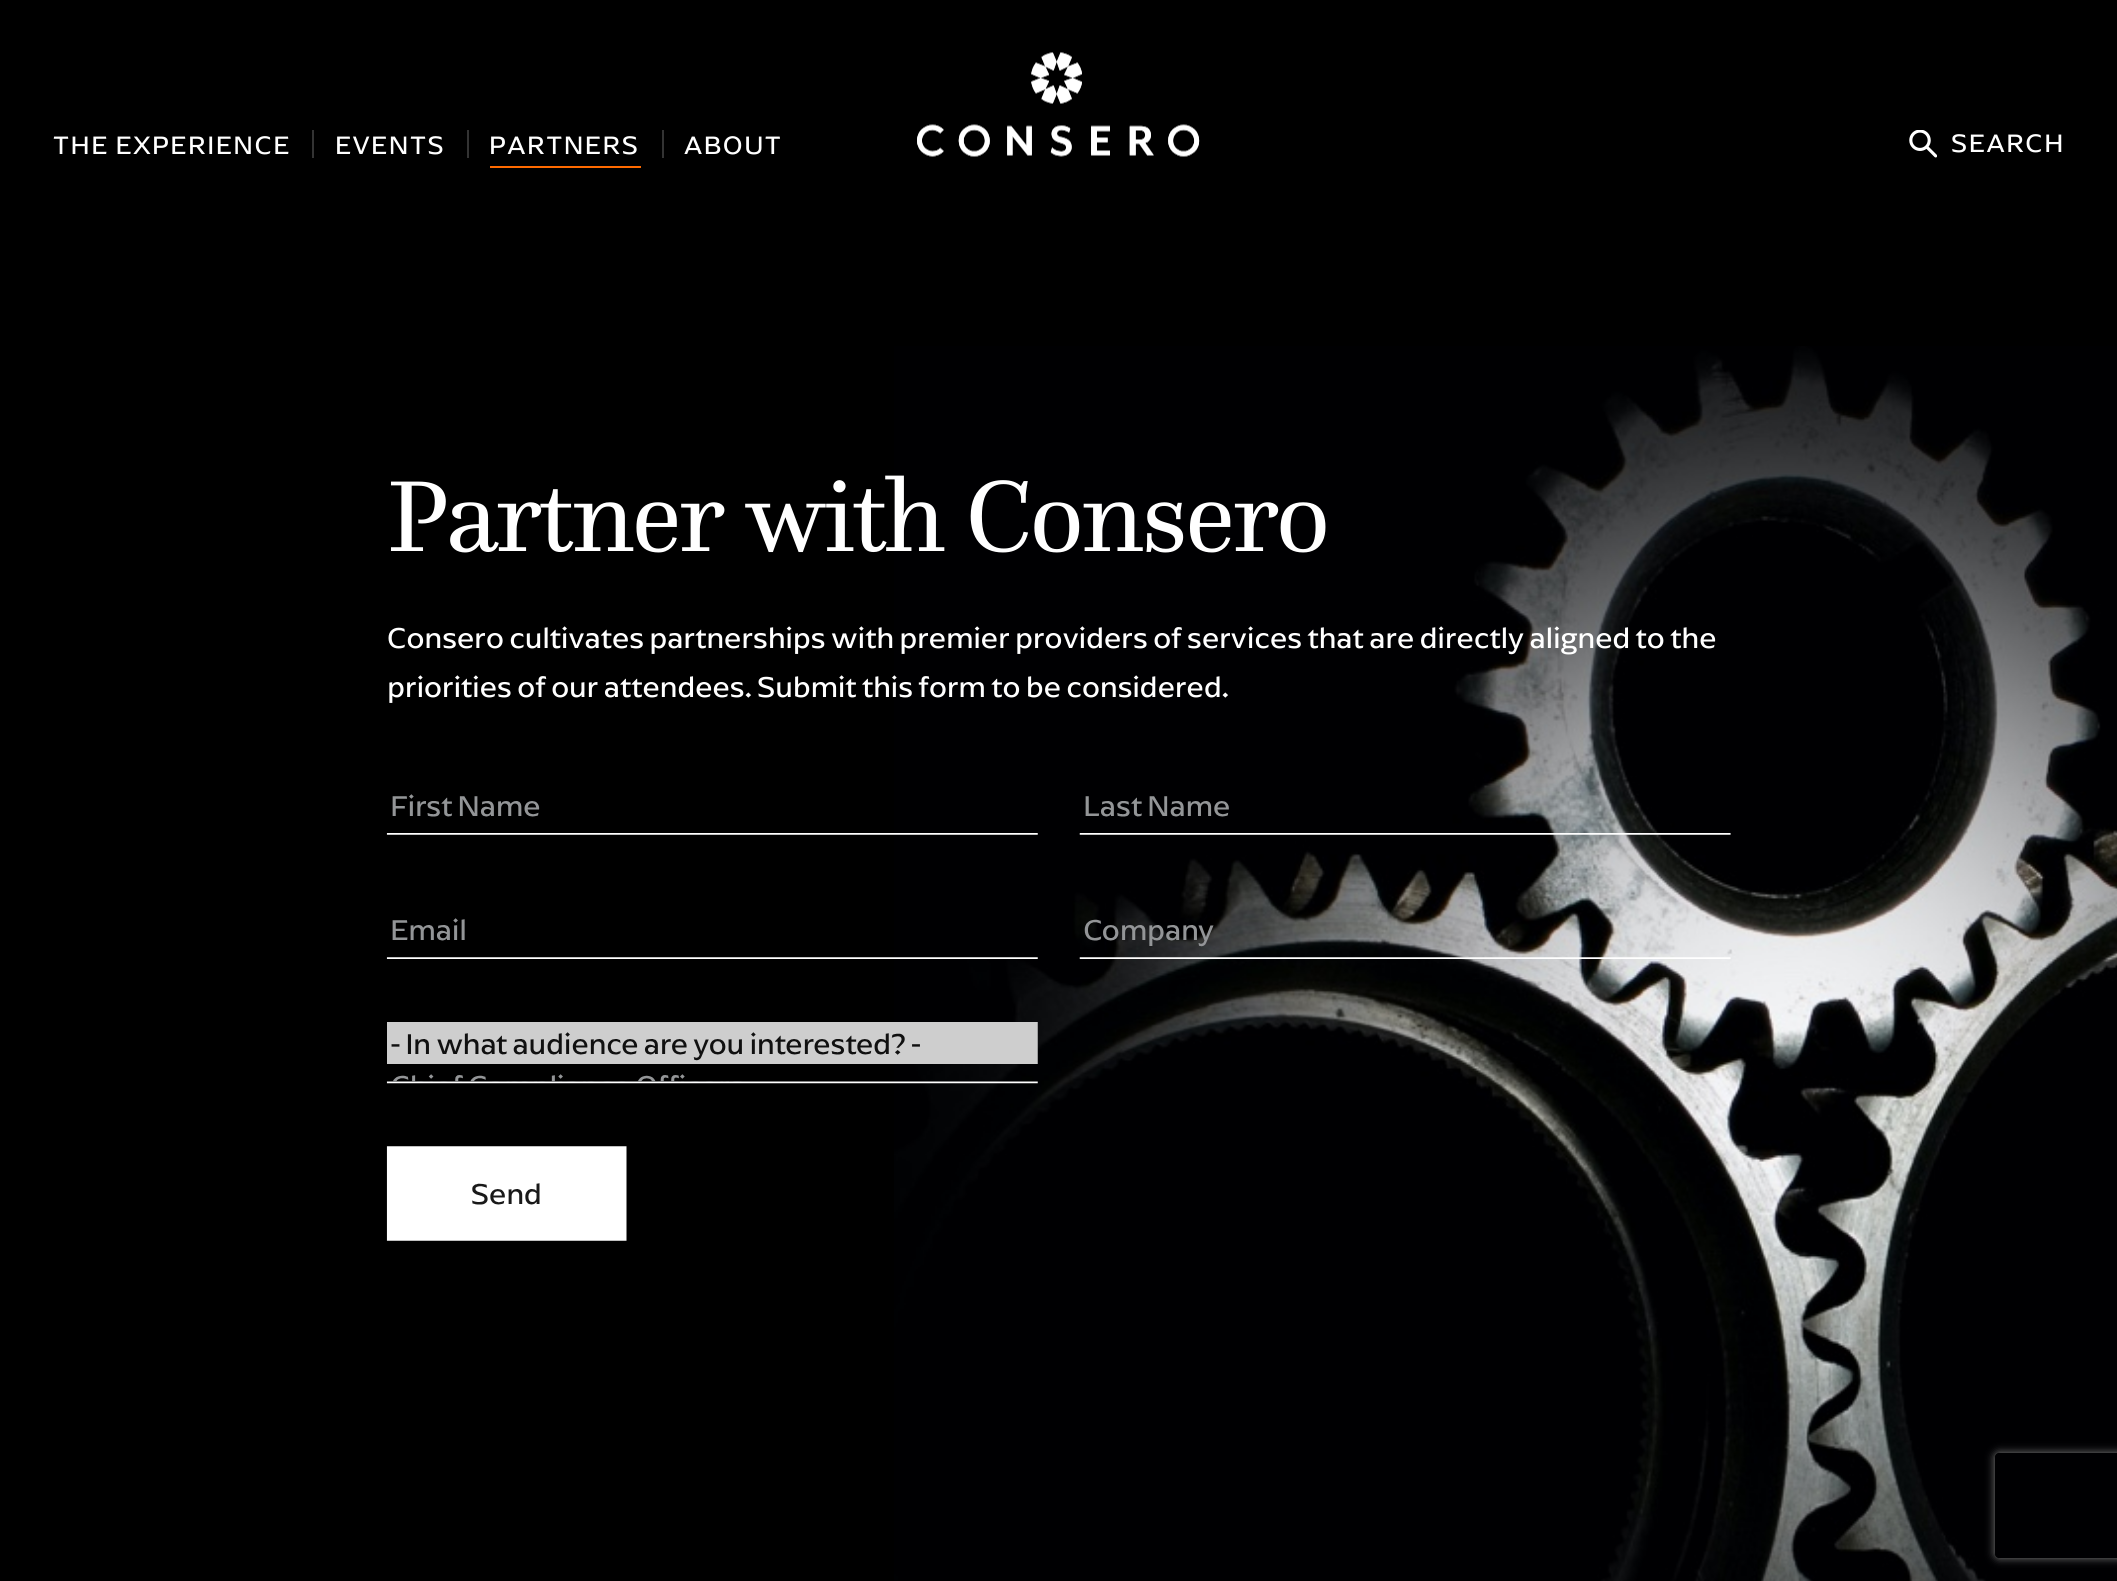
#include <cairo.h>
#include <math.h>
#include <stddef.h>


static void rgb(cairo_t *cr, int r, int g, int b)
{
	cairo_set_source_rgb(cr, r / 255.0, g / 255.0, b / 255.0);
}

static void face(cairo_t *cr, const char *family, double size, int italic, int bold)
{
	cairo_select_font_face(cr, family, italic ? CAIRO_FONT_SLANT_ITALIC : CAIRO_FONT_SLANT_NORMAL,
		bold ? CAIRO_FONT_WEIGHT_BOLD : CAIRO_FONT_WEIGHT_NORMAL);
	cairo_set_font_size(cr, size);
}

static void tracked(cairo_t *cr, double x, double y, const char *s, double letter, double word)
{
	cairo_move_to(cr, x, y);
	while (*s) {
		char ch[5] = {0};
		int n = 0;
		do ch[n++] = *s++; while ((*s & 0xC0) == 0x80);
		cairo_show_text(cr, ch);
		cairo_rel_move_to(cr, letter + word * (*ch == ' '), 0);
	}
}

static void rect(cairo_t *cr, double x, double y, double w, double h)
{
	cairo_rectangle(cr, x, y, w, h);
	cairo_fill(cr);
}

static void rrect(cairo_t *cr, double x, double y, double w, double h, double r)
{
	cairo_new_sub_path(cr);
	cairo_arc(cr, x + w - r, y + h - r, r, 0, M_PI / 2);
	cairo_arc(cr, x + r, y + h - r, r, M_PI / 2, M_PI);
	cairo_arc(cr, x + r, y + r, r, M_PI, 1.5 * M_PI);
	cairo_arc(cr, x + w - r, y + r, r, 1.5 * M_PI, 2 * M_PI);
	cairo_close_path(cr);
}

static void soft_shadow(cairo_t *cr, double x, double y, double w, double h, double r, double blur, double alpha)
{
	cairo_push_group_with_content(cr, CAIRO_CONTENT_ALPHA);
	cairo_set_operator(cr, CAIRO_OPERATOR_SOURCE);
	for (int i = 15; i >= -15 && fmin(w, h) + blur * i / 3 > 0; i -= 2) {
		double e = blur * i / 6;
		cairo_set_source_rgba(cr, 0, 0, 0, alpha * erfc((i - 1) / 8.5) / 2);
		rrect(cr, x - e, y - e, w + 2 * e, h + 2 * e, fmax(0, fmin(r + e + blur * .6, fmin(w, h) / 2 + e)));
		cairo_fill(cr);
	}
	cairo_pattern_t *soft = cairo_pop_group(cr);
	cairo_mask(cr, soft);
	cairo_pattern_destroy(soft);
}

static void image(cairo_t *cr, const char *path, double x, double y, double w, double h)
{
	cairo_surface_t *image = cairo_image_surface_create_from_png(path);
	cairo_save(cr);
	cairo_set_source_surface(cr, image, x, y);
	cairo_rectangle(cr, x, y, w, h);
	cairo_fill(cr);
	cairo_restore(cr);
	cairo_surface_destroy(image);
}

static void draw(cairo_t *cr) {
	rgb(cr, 0, 0, 0);
	cairo_paint(cr);
	face(cr, "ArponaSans", 26.25, 0, 0);
	rgb(cr, 255, 255, 255);
	tracked(cr, 53, 154, "THE EXPERIENCE", 1.5, 0);
	rgb(cr, 51, 51, 51);
	rect(cr, 312, 130, 2, 28);
	rgb(cr, 255, 255, 255);
	tracked(cr, 335, 154, "EVENTS", 1.5, 0);
	rgb(cr, 51, 51, 51);
	rect(cr, 467, 130, 2, 28);
	rgb(cr, 255, 255, 255);
	tracked(cr, 489, 154, "PARTNERS", 1.5, 0);
	rgb(cr, 255, 106, 0);
	rect(cr, 490, 166, 151, 2);
	rgb(cr, 51, 51, 51);
	rect(cr, 662, 130, 2, 28);
	rgb(cr, 255, 255, 255);
	tracked(cr, 684, 154, "ABOUT", 1.5, 0);
	image(cr, "image0.png", 917, 52, 283, 105);
	image(cr, "image1.png", 1909, 130, 28, 28);
	tracked(cr, 1951, 152, "SEARCH", 1.5, 0);
	image(cr, "image2.png", 894, 346, 1223, 1235);
	face(cr, "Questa", 105, 0, 0);
	tracked(cr, 387, 551, "Partner with Consero", -2.6, 0);
	face(cr, "ArponaSans", 29.75, 0, 0);
	tracked(cr, 387, 648, "Consero cultivates partnerships with premier providers of services that are directly aligned to the", -0.35, 0);
	tracked(cr, 387, 697, "priorities of our attendees. Submit this form to be considered.", -0.35, 0);
	image(cr, "image3.png", 386, 794, 1345, 447);
	cairo_save(cr);
	cairo_set_fill_rule(cr, CAIRO_FILL_RULE_EVEN_ODD);
	cairo_new_path(cr);
	cairo_move_to(cr, 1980, 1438);
	cairo_line_to(cr, 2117, 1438);
	cairo_line_to(cr, 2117, 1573);
	cairo_line_to(cr, 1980, 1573);
	cairo_close_path(cr);
	cairo_move_to(cr, 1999, 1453);
	cairo_line_to(cr, 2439, 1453);
	cairo_curve_to(cr, 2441, 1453, 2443, 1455, 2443, 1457);
	cairo_line_to(cr, 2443, 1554);
	cairo_curve_to(cr, 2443, 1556, 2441, 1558, 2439, 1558);
	cairo_line_to(cr, 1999, 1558);
	cairo_curve_to(cr, 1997, 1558, 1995, 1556, 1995, 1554);
	cairo_line_to(cr, 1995, 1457);
	cairo_curve_to(cr, 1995, 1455, 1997, 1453, 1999, 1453);
	cairo_close_path(cr);
	cairo_clip(cr);
	rgb(cr, 128, 128, 128);
	soft_shadow(cr, 1995, 1453, 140, 105, 4, 4.5, 1);
	cairo_restore(cr);
}

int main(void) {
	cairo_surface_t *surface = cairo_image_surface_create(CAIRO_FORMAT_RGB24, 2117, 1581);
	cairo_t *cr = cairo_create(surface);
	cairo_font_options_t *options = cairo_font_options_create();
	cairo_font_options_set_hint_metrics(options, CAIRO_HINT_METRICS_OFF);
	cairo_font_options_set_hint_style(options, CAIRO_HINT_STYLE_NONE);
	cairo_set_font_options(cr, options);
	cairo_set_miter_limit(cr, 4);
	draw(cr);
	cairo_surface_write_to_png(surface, "render.png");
	cairo_font_options_destroy(options);
	cairo_destroy(cr);
	cairo_surface_destroy(surface);
	return 0;
}
